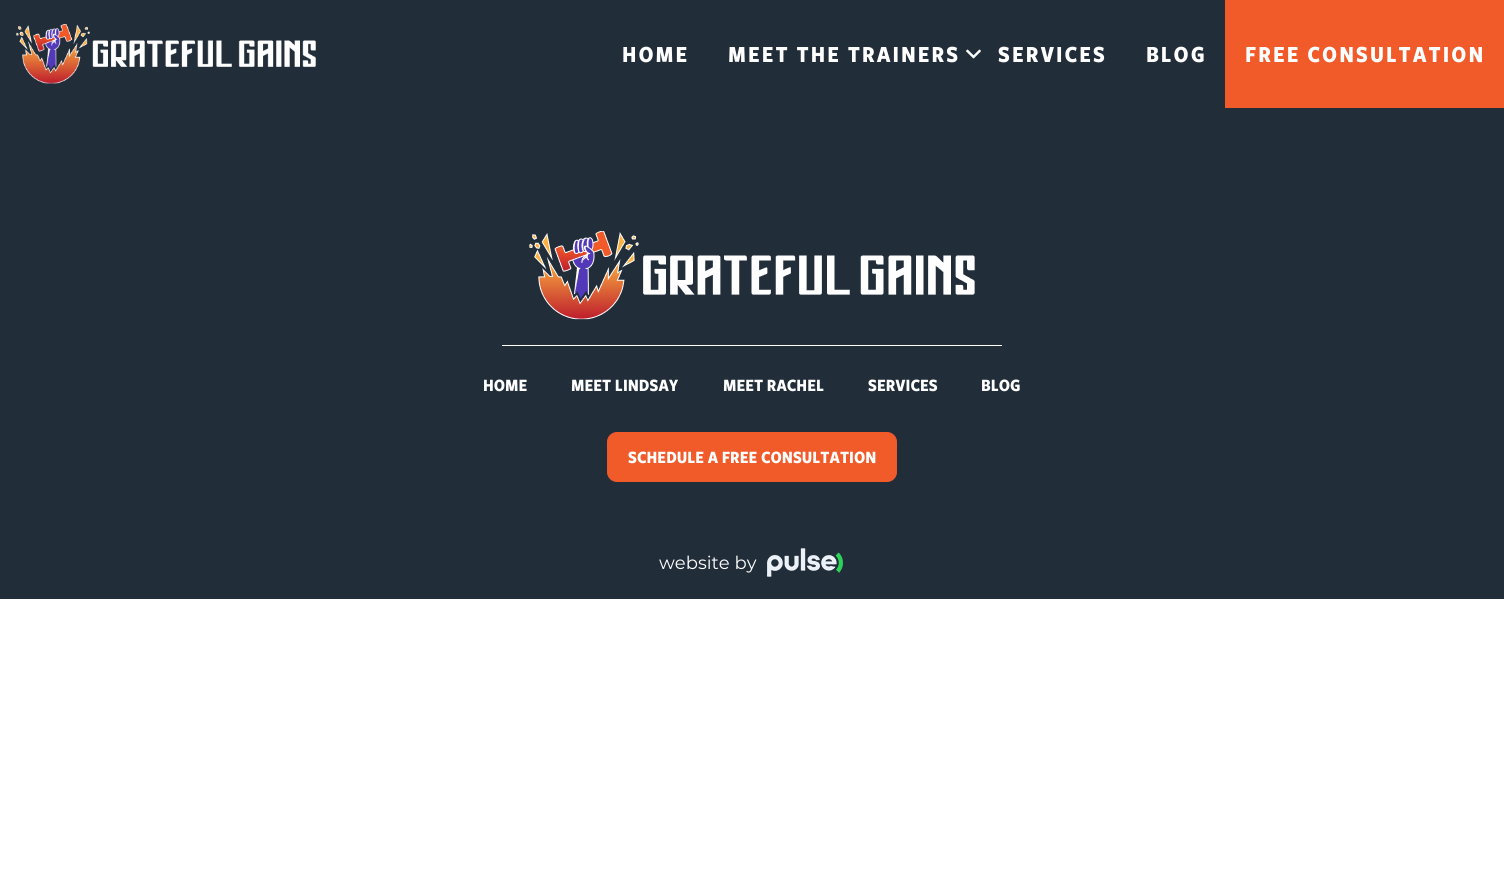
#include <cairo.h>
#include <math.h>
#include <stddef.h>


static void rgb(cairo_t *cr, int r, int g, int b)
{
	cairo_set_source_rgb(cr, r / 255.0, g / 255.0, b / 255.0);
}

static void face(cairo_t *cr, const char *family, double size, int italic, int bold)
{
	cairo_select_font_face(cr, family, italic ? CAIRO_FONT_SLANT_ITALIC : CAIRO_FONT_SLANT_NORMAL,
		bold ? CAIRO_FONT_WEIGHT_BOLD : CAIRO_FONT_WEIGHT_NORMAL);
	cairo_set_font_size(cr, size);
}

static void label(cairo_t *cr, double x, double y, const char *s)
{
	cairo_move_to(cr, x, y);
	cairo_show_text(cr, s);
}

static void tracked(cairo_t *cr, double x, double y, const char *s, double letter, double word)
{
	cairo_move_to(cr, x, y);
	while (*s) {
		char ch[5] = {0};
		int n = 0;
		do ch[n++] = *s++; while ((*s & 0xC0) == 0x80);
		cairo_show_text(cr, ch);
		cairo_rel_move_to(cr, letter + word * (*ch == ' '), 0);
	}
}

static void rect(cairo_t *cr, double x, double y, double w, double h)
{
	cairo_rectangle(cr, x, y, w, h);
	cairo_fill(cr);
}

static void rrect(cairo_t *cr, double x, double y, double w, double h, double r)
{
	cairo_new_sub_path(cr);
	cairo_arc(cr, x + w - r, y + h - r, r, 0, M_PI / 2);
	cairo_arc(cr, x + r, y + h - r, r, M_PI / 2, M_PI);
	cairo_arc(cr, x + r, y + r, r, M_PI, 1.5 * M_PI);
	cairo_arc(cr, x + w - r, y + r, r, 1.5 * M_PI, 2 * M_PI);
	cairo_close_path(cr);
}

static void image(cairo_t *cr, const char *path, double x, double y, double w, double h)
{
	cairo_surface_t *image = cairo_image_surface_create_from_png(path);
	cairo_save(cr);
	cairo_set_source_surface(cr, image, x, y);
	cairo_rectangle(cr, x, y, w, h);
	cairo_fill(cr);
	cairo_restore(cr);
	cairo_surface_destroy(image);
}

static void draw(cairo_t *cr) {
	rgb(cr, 255, 255, 255);
	cairo_paint(cr);
	rgb(cr, 34, 45, 58);
	rect(cr, 0, 0, 1225, 108);
	image(cr, "image0.png", 16, 24, 300, 60);
	face(cr, "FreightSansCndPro", 24, 0, 1);
	rgb(cr, 255, 255, 255);
	tracked(cr, 622, 62, "HOME", 2, 0);
	tracked(cr, 728, 62, "MEET THE TRAINERS", 2, 0);
	image(cr, "image1.png", 966, 49, 15, 10);
	tracked(cr, 998, 62, "SERVICES", 2, 0);
	tracked(cr, 1146, 62, "BLOG", 2, 0);
	rgb(cr, 241, 90, 41);
	rect(cr, 1225, 0, 279, 108);
	rgb(cr, 255, 255, 255);
	tracked(cr, 1245, 62, "FREE CONSULTATION", 2, 0);
	rgb(cr, 34, 45, 58);
	rect(cr, 0, 108, 1504, 491);
	rgb(cr, 255, 255, 255);
	rect(cr, 502, 345, 500, 1);
	image(cr, "image2.png", 529, 231, 446, 89);
	face(cr, "FreightSansCndPro", 18, 0, 1);
	label(cr, 483, 391, "HOME");
	label(cr, 571, 391, "MEET LINDSAY");
	label(cr, 723, 391, "MEET RACHEL");
	label(cr, 868, 391, "SERVICES");
	label(cr, 981, 391, "BLOG");
	rgb(cr, 241, 90, 41);
	rrect(cr, 607.5, 432.5, 289, 49, 9.5);
	cairo_fill_preserve(cr);
	cairo_set_line_width(cr, 1);
	cairo_stroke(cr);
	rgb(cr, 255, 255, 255);
	label(cr, 628, 463, "SCHEDULE A FREE CONSULTATION");
	face(cr, "Montserrat", 18, 0, 0);
	label(cr, 659, 569, "website by");
	image(cr, "image3.png", 767, 548, 76, 29);
}

int main(void) {
	cairo_surface_t *surface = cairo_image_surface_create(CAIRO_FORMAT_RGB24, 1504, 884);
	cairo_t *cr = cairo_create(surface);
	cairo_font_options_t *options = cairo_font_options_create();
	cairo_font_options_set_hint_metrics(options, CAIRO_HINT_METRICS_OFF);
	cairo_font_options_set_hint_style(options, CAIRO_HINT_STYLE_NONE);
	cairo_set_font_options(cr, options);
	cairo_set_miter_limit(cr, 4);
	draw(cr);
	cairo_surface_write_to_png(surface, "render.png");
	cairo_font_options_destroy(options);
	cairo_destroy(cr);
	cairo_surface_destroy(surface);
	return 0;
}
